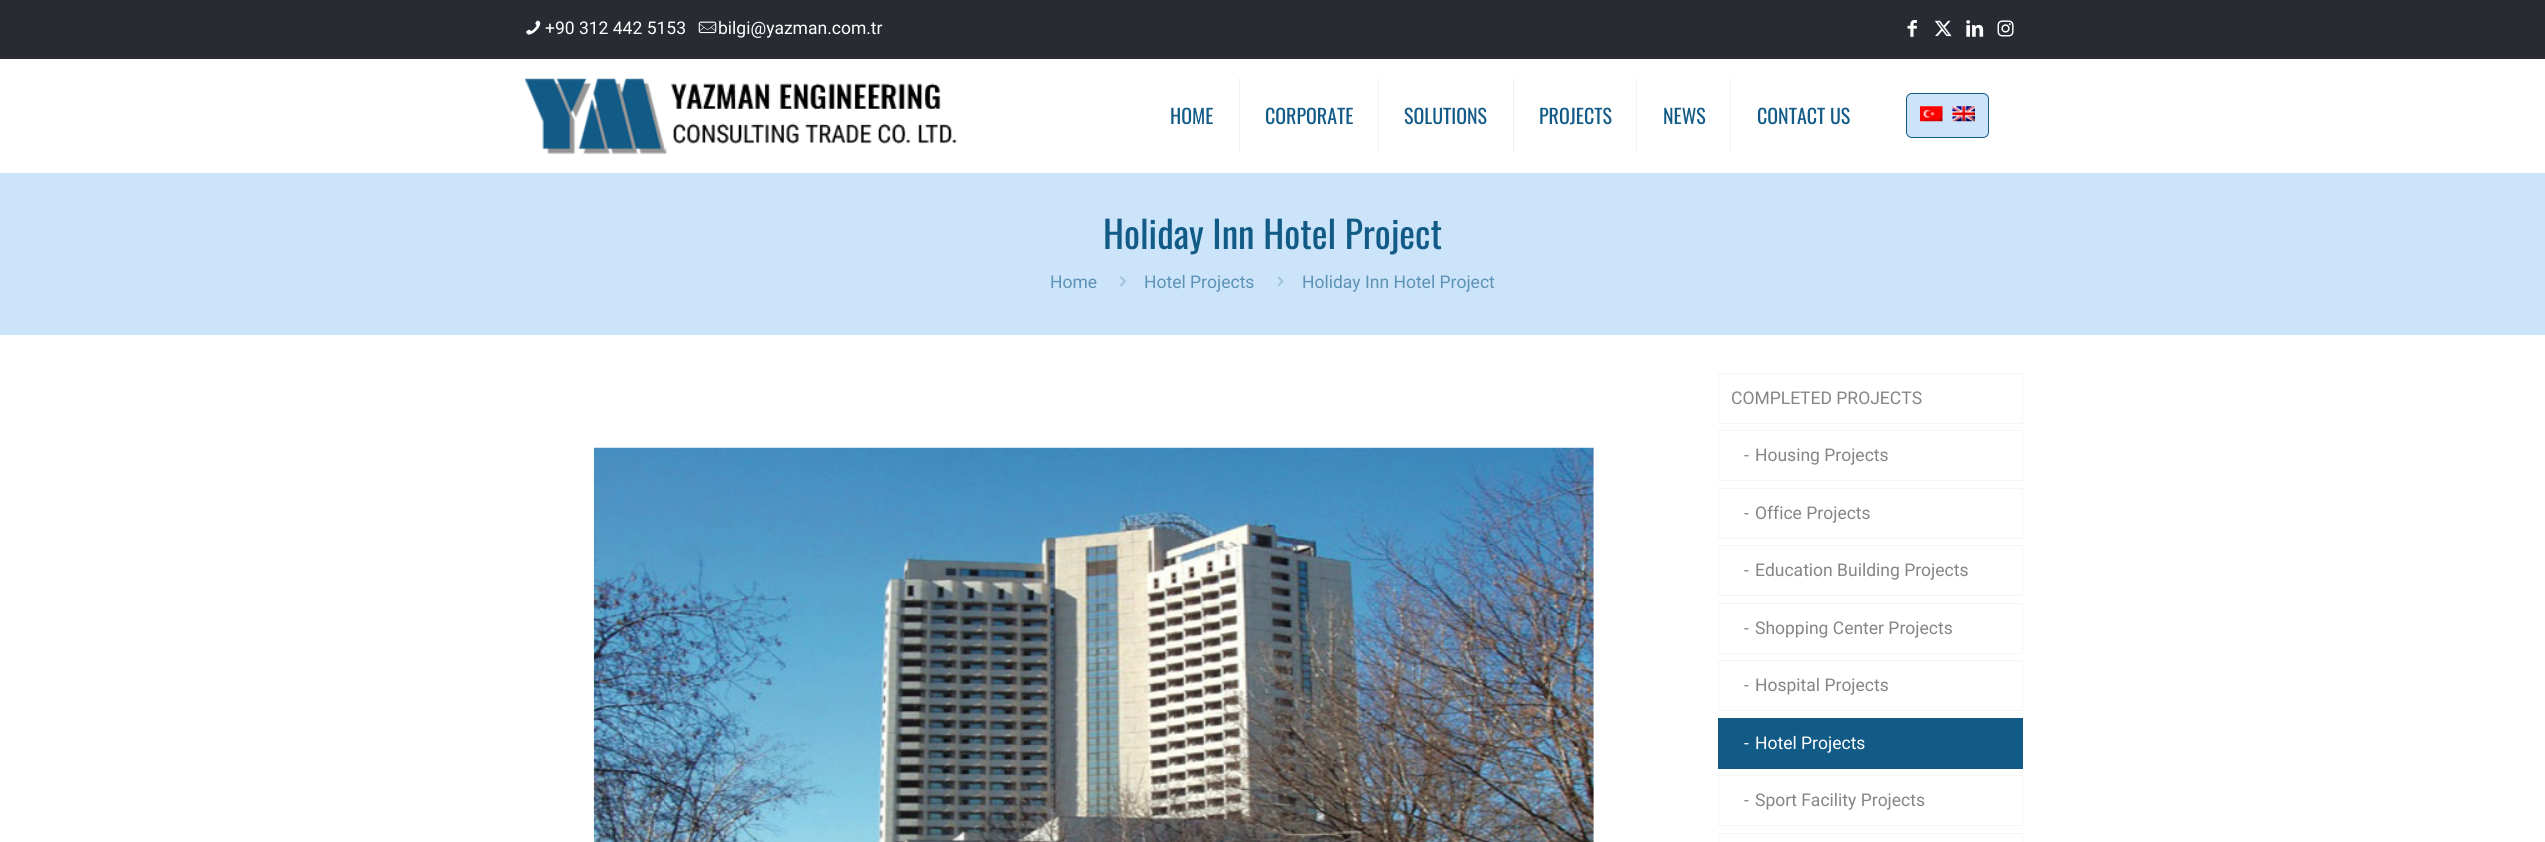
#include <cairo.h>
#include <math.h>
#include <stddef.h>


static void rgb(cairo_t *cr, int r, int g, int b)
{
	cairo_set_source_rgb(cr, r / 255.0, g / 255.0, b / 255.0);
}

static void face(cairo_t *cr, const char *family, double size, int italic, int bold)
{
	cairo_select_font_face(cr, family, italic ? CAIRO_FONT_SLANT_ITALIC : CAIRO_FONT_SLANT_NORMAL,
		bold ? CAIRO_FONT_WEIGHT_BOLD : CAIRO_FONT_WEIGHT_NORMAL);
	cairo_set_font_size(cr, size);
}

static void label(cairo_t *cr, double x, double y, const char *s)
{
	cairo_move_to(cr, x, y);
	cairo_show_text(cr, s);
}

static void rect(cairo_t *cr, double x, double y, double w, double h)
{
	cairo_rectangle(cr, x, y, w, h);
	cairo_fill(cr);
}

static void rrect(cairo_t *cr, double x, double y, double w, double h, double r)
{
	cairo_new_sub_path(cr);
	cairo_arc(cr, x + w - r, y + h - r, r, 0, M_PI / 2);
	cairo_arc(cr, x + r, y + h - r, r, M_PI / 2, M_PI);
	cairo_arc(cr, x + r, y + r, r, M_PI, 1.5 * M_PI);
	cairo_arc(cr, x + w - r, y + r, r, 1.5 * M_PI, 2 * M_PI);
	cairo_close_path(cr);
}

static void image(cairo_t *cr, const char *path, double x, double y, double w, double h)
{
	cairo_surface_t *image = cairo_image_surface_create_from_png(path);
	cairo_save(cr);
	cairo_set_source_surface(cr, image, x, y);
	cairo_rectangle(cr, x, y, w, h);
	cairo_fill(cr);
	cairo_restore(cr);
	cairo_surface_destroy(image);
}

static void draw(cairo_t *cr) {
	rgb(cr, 255, 255, 255);
	cairo_paint(cr);
	rgb(cr, 41, 43, 51);
	rect(cr, 0, 0, 2545, 59);
	image(cr, "image0.png", 526, 20, 15, 15);
	face(cr, "Roboto", 17.5, 0, 0);
	rgb(cr, 255, 255, 255);
	label(cr, 545, 34, "+90 312 442 5153");
	image(cr, "image1.png", 698, 21, 19, 13);
	label(cr, 718, 34, "bilgi@yazman.com.tr");
	image(cr, "image2.png", 1907, 20, 10, 17);
	image(cr, "image3.png", 1934, 20, 18, 17);
	image(cr, "image4.png", 1966, 20, 18, 17);
	image(cr, "image5.png", 1997, 20, 17, 17);
	image(cr, "image6.png", 525, 78, 432, 76);
	rgb(cr, 242, 242, 242);
	rect(cr, 1239, 78, 1, 75);
	face(cr, "Oswald", 20, 0, 0);
	rgb(cr, 19, 91, 135);
	label(cr, 1170, 124, "HOME");
	rgb(cr, 242, 242, 242);
	rect(cr, 1378, 78, 1, 75);
	rgb(cr, 19, 91, 135);
	label(cr, 1265, 124, "CORPORATE");
	rgb(cr, 242, 242, 242);
	rect(cr, 1513, 78, 1, 75);
	rgb(cr, 19, 91, 135);
	label(cr, 1404, 124, "SOLUTIONS");
	rgb(cr, 242, 242, 242);
	rect(cr, 1636, 78, 1, 75);
	rgb(cr, 19, 91, 135);
	label(cr, 1539, 124, "PROJECTS");
	rgb(cr, 242, 242, 242);
	rect(cr, 1730, 78, 1, 75);
	rgb(cr, 19, 91, 135);
	label(cr, 1663, 124, "NEWS");
	label(cr, 1757, 124, "CONTACT US");
	rgb(cr, 204, 228, 249);
	rrect(cr, 1906.5, 93.5, 82, 44, 5.5);
	cairo_fill_preserve(cr);
	rgb(cr, 19, 91, 135);
	cairo_set_line_width(cr, 1);
	cairo_stroke(cr);
	image(cr, "image7.png", 1920, 106, 23, 16);
	image(cr, "image8.png", 1952, 106, 23, 16);
	rgb(cr, 204, 228, 249);
	rect(cr, 0, 173, 2545, 162);
	face(cr, "Oswald", 37.5, 0, 0);
	rgb(cr, 19, 91, 135);
	label(cr, 1103, 249, "Holiday Inn Hotel Project");
	face(cr, "Roboto", 17.5, 0, 0);
	rgb(cr, 93, 146, 181);
	label(cr, 1050, 288, "Home");
	image(cr, "image9.png", 1120, 276, 6, 11);
	label(cr, 1144, 288, "Hotel Projects");
	image(cr, "image10.png", 1277, 276, 7, 11);
	label(cr, 1302, 288, "Holiday Inn Hotel Project");
	image(cr, "image11.png", 593, 447, 1001, 395);
	cairo_rectangle(cr, 1718.5, 373.5, 304, 50);
	rgb(cr, 245, 245, 245);
	cairo_stroke(cr);
	rgb(cr, 133, 133, 133);
	label(cr, 1731, 404, "COMPLETED PROJECTS");
	cairo_rectangle(cr, 1718.5, 430.5, 304, 50);
	rgb(cr, 245, 245, 245);
	cairo_stroke(cr);
	rgb(cr, 133, 133, 133);
	label(cr, 1744, 461, "-");
	label(cr, 1755, 461, "Housing Projects");
	cairo_rectangle(cr, 1718.5, 488.5, 304, 50);
	rgb(cr, 245, 245, 245);
	cairo_stroke(cr);
	rgb(cr, 133, 133, 133);
	label(cr, 1744, 519, "-");
	label(cr, 1755, 519, "Office Projects");
	cairo_rectangle(cr, 1718.5, 545.5, 304, 50);
	rgb(cr, 245, 245, 245);
	cairo_stroke(cr);
	rgb(cr, 133, 133, 133);
	label(cr, 1744, 576, "-");
	label(cr, 1755, 576, "Education Building Projects");
	cairo_rectangle(cr, 1718.5, 603.5, 304, 50);
	rgb(cr, 245, 245, 245);
	cairo_stroke(cr);
	rgb(cr, 133, 133, 133);
	label(cr, 1744, 634, "-");
	label(cr, 1755, 634, "Shopping Center Projects");
	cairo_rectangle(cr, 1718.5, 660.5, 304, 50);
	rgb(cr, 245, 245, 245);
	cairo_stroke(cr);
	rgb(cr, 133, 133, 133);
	label(cr, 1744, 691, "-");
	label(cr, 1755, 691, "Hospital Projects");
	rgb(cr, 19, 91, 135);
	cairo_rectangle(cr, 1718.5, 718.5, 304, 50);
	cairo_fill_preserve(cr);
	rgb(cr, 18, 87, 130);
	cairo_stroke(cr);
	rgb(cr, 255, 255, 255);
	label(cr, 1744, 749, "-");
	label(cr, 1755, 749, "Hotel Projects");
	cairo_rectangle(cr, 1718.5, 775.5, 304, 50);
	rgb(cr, 245, 245, 245);
	cairo_stroke(cr);
	rgb(cr, 133, 133, 133);
	label(cr, 1744, 806, "-");
	label(cr, 1755, 806, "Sport Facility Projects");
	cairo_rectangle(cr, 1718.5, 833.5, 304, 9);
	rgb(cr, 245, 245, 245);
	cairo_stroke(cr);
}

int main(void) {
	cairo_surface_t *surface = cairo_image_surface_create(CAIRO_FORMAT_RGB24, 2545, 842);
	cairo_t *cr = cairo_create(surface);
	cairo_font_options_t *options = cairo_font_options_create();
	cairo_font_options_set_hint_metrics(options, CAIRO_HINT_METRICS_OFF);
	cairo_font_options_set_hint_style(options, CAIRO_HINT_STYLE_NONE);
	cairo_set_font_options(cr, options);
	cairo_set_miter_limit(cr, 4);
	draw(cr);
	cairo_surface_write_to_png(surface, "render.png");
	cairo_font_options_destroy(options);
	cairo_destroy(cr);
	cairo_surface_destroy(surface);
	return 0;
}
